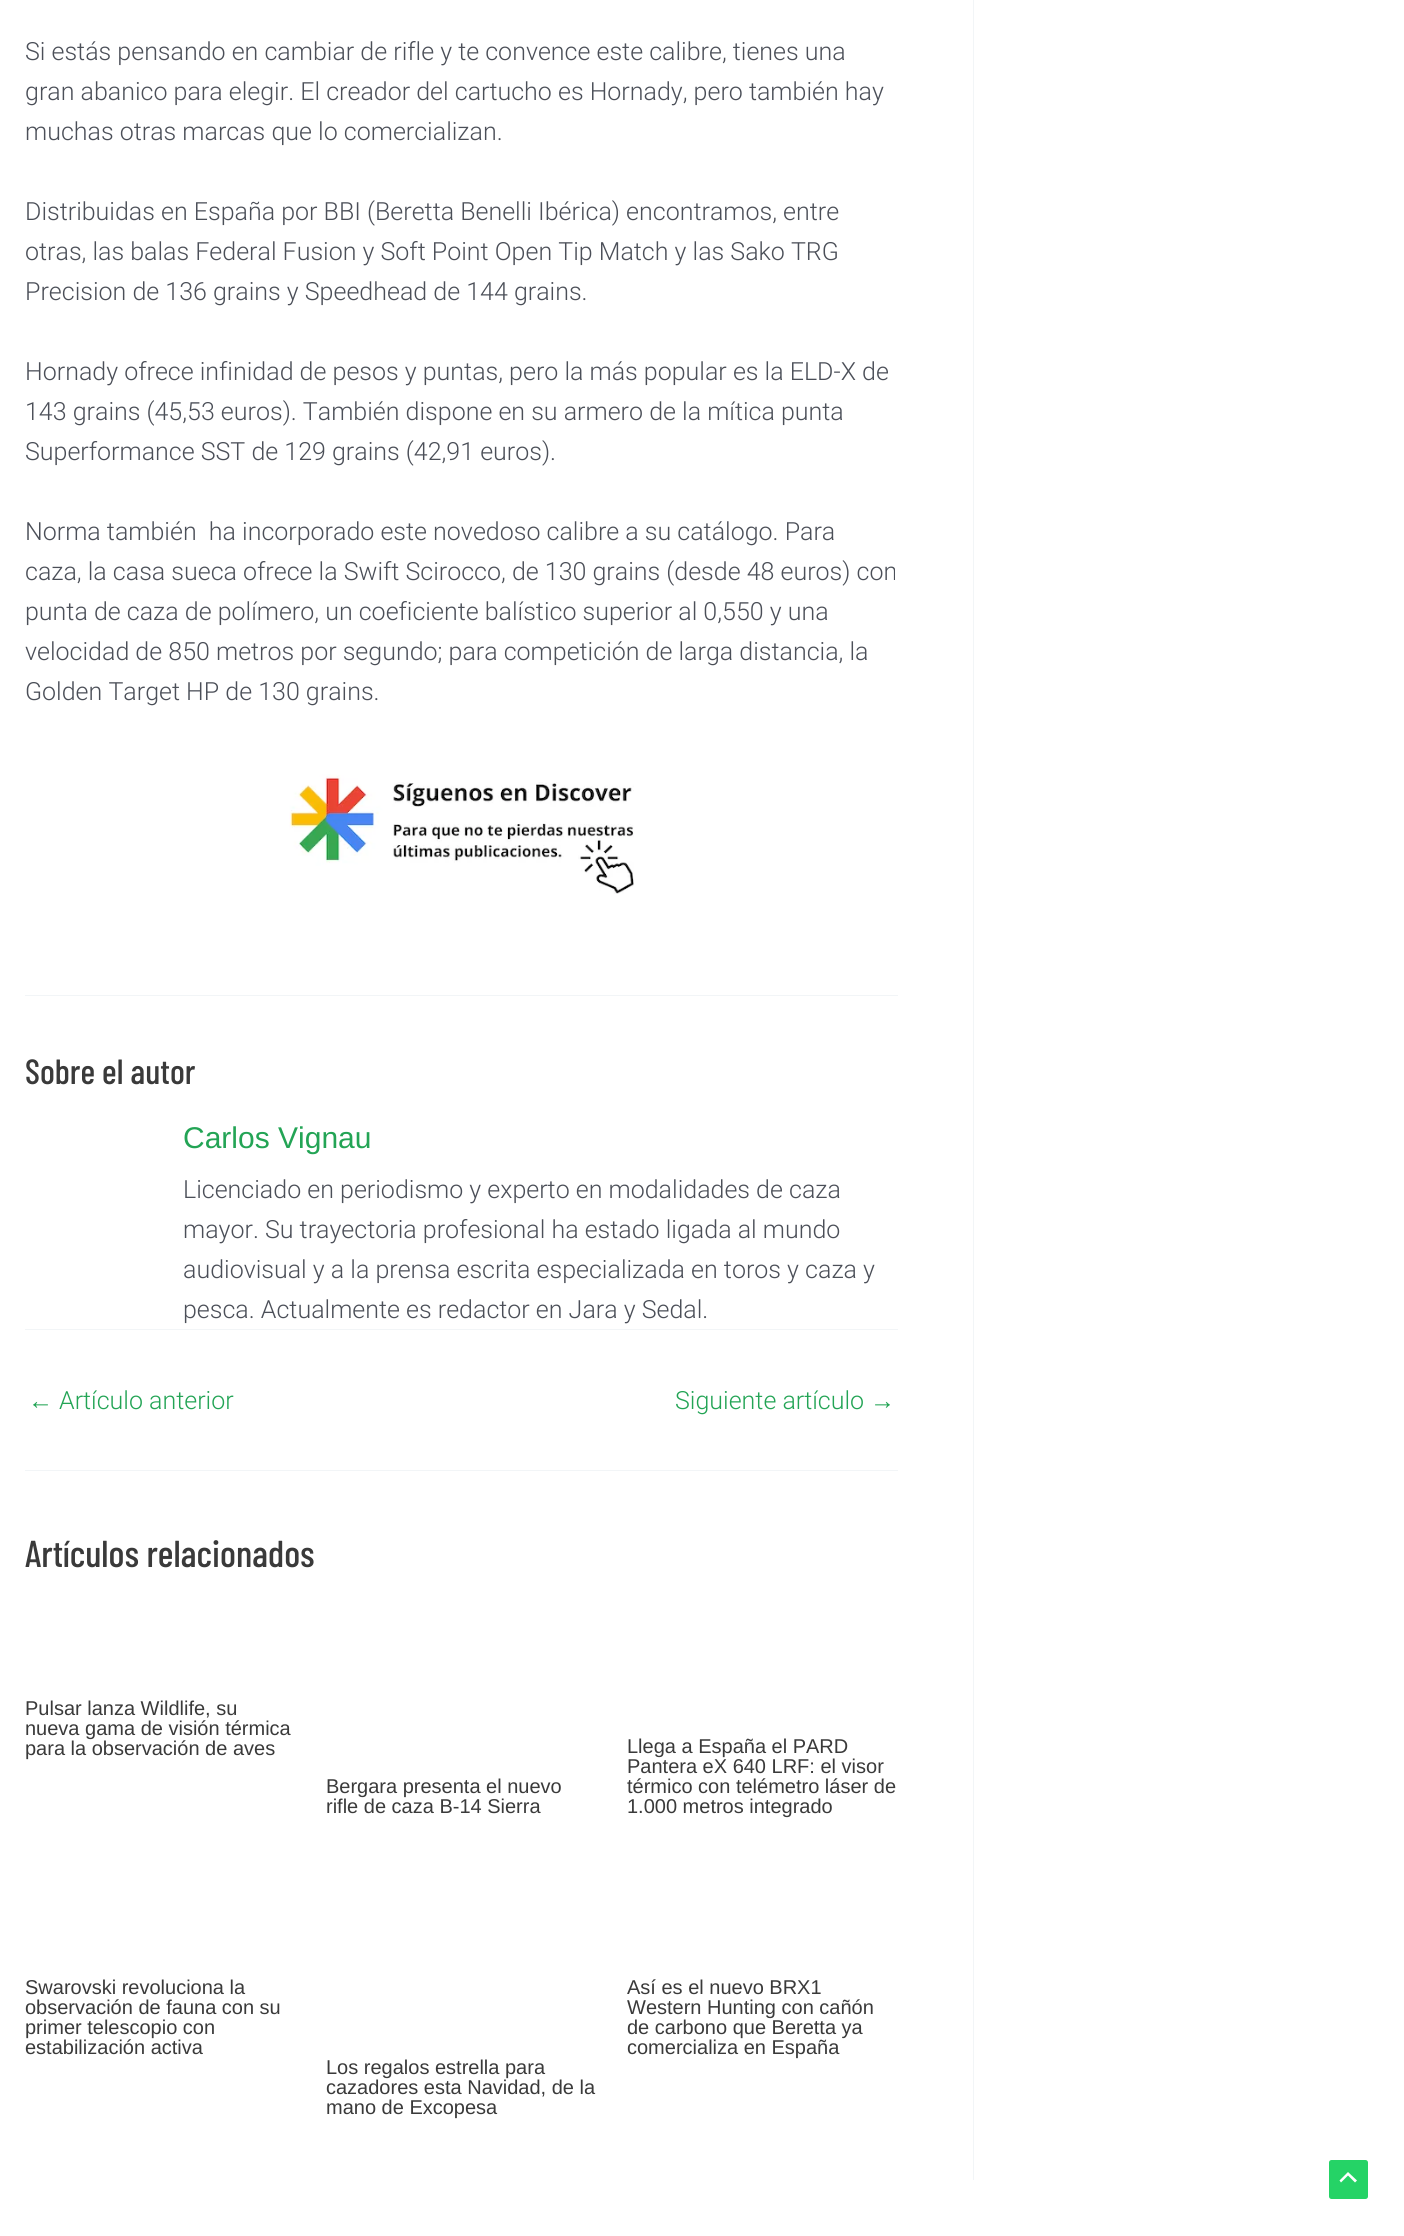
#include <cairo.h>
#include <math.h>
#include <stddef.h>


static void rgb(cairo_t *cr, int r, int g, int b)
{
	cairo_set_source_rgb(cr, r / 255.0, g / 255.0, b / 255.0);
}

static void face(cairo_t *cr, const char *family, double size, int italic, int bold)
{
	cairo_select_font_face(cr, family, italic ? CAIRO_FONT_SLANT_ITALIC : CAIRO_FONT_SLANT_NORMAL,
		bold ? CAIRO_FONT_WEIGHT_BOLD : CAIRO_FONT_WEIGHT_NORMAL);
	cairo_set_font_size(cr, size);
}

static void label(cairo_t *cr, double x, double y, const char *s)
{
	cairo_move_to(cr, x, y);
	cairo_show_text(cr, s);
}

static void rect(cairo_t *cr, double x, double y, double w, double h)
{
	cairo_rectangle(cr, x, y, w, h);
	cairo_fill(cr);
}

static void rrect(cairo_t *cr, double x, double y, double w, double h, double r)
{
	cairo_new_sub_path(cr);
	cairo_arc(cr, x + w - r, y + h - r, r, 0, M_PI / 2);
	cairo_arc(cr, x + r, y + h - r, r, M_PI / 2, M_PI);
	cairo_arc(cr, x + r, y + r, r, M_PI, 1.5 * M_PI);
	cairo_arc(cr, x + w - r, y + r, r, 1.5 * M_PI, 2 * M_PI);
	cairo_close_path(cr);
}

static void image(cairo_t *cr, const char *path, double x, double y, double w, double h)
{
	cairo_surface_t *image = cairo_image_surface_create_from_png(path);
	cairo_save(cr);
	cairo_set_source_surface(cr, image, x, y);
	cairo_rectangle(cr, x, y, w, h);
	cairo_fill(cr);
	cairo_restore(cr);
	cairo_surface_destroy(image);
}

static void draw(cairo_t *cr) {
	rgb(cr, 255, 255, 255);
	cairo_paint(cr);
	face(cr, "Roboto Light", 25, 0, 0);
	rgb(cr, 75, 79, 88);
	label(cr, 25, 60, "Si estás pensando en cambiar de rifle y te convence este calibre, tienes una");
	label(cr, 25, 100, "gran abanico para elegir. El creador del cartucho es Hornady, pero también hay");
	label(cr, 25, 140, "muchas otras marcas que lo comercializan.");
	label(cr, 25, 220, "Distribuidas en España por BBI (Beretta Benelli Ibérica) encontramos, entre");
	label(cr, 25, 260, "otras, las balas Federal Fusion y Soft Point Open Tip Match y las Sako TRG");
	label(cr, 25, 300, "Precision de 136 grains y Speedhead de 144 grains.");
	label(cr, 25, 380, "Hornady ofrece infinidad de pesos y puntas, pero la más popular es la ELD-X de");
	label(cr, 25, 420, "143 grains (45,53 euros). También dispone en su armero de la mítica punta");
	label(cr, 25, 460, "Superformance SST de 129 grains (42,91 euros).");
	label(cr, 25, 540, "Norma también  ha incorporado este novedoso calibre a su catálogo. Para");
	label(cr, 25, 580, "caza, la casa sueca ofrece la Swift Scirocco, de 130 grains (desde 48 euros) con");
	label(cr, 25, 620, "punta de caza de polímero, un coeficiente balístico superior al 0,550 y una");
	label(cr, 25, 660, "velocidad de 850 metros por segundo; para competición de larga distancia, la");
	label(cr, 25, 700, "Golden Target HP de 130 grains.");
	image(cr, "image0.png", 289, 774, 345, 120);
	rgb(cr, 242, 245, 247);
	rect(cr, 25, 995, 873, 1);
	face(cr, "Barlow Condensed Medium", 35, 0, 0);
	rgb(cr, 58, 58, 58);
	label(cr, 25, 1084, "Sobre el autor");
	face(cr, "Liberation Sans", 30, 0, 0);
	rgb(cr, 35, 164, 85);
	label(cr, 183, 1148, "Carlos Vignau");
	face(cr, "Roboto Light", 25, 0, 0);
	rgb(cr, 75, 79, 88);
	label(cr, 183, 1198, "Licenciado en periodismo y experto en modalidades de caza");
	label(cr, 183, 1238, "mayor. Su trayectoria profesional ha estado ligada al mundo");
	label(cr, 183, 1278, "audiovisual y a la prensa escrita especializada en toros y caza y");
	label(cr, 183, 1318, "pesca. Actualmente es redactor en Jara y Sedal.");
	rgb(cr, 242, 245, 247);
	rect(cr, 25, 1329, 873, 1);
	face(cr, "Liberation Sans", 25, 0, 0);
	rgb(cr, 35, 164, 85);
	label(cr, 28, 1409, "←");
	face(cr, "Roboto Light", 25, 0, 0);
	label(cr, 59, 1409, "Artículo anterior");
	label(cr, 675, 1409, "Siguiente artículo");
	face(cr, "Liberation Sans", 25, 0, 0);
	label(cr, 870, 1409, "→");
	rgb(cr, 242, 245, 247);
	rect(cr, 25, 1470, 873, 1);
	face(cr, "Barlow Condensed Medium", 37.5, 0, 0);
	rgb(cr, 58, 58, 58);
	label(cr, 25, 1567, "Artículos relacionados");
	face(cr, "Liberation Sans", 20, 0, 0);
	label(cr, 25, 1715, "Pulsar lanza Wildlife, su");
	label(cr, 25, 1735, "nueva gama de visión térmica");
	label(cr, 25, 1755, "para la observación de aves");
	label(cr, 326, 1793, "Bergara presenta el nuevo");
	label(cr, 326, 1813, "rifle de caza B-14 Sierra");
	label(cr, 627, 1753, "Llega a España el PARD");
	label(cr, 627, 1773, "Pantera eX 640 LRF: el visor");
	label(cr, 627, 1793, "térmico con telémetro láser de");
	label(cr, 627, 1813, "1.000 metros integrado");
	label(cr, 25, 1994, "Swarovski revoluciona la");
	label(cr, 25, 2014, "observación de fauna con su");
	label(cr, 25, 2034, "primer telescopio con");
	label(cr, 25, 2054, "estabilización activa");
	label(cr, 627, 1994, "Así es el nuevo BRX1");
	label(cr, 627, 2014, "Western Hunting con cañón");
	label(cr, 627, 2034, "de carbono que Beretta ya");
	label(cr, 627, 2054, "comercializa en España");
	label(cr, 326, 2074, "Los regalos estrella para");
	label(cr, 326, 2094, "cazadores esta Navidad, de la");
	label(cr, 326, 2114, "mano de Excopesa");
	rgb(cr, 242, 245, 247);
	rect(cr, 973, 0, 1, 2180);
	rgb(cr, 37, 211, 102);
	rrect(cr, 1329, 2160, 39, 39, 2.5);
	cairo_fill(cr);
	rgb(cr, 255, 255, 255);
	cairo_new_path(cr);
	cairo_move_to(cr, 1357, 2180.5);
	cairo_line_to(cr, 1348, 2172);
	cairo_line_to(cr, 1339.5, 2180.5);
	cairo_line_to(cr, 1341, 2182.5);
	cairo_line_to(cr, 1348, 2175.5);
	cairo_line_to(cr, 1355, 2182.5);
	cairo_close_path(cr);
	cairo_fill(cr);
}

int main(void) {
	cairo_surface_t *surface = cairo_image_surface_create(CAIRO_FORMAT_RGB24, 1404, 2236);
	cairo_t *cr = cairo_create(surface);
	cairo_font_options_t *options = cairo_font_options_create();
	cairo_font_options_set_hint_metrics(options, CAIRO_HINT_METRICS_OFF);
	cairo_font_options_set_hint_style(options, CAIRO_HINT_STYLE_NONE);
	cairo_set_font_options(cr, options);
	cairo_set_miter_limit(cr, 4);
	draw(cr);
	cairo_surface_write_to_png(surface, "render.png");
	cairo_font_options_destroy(options);
	cairo_destroy(cr);
	cairo_surface_destroy(surface);
	return 0;
}
